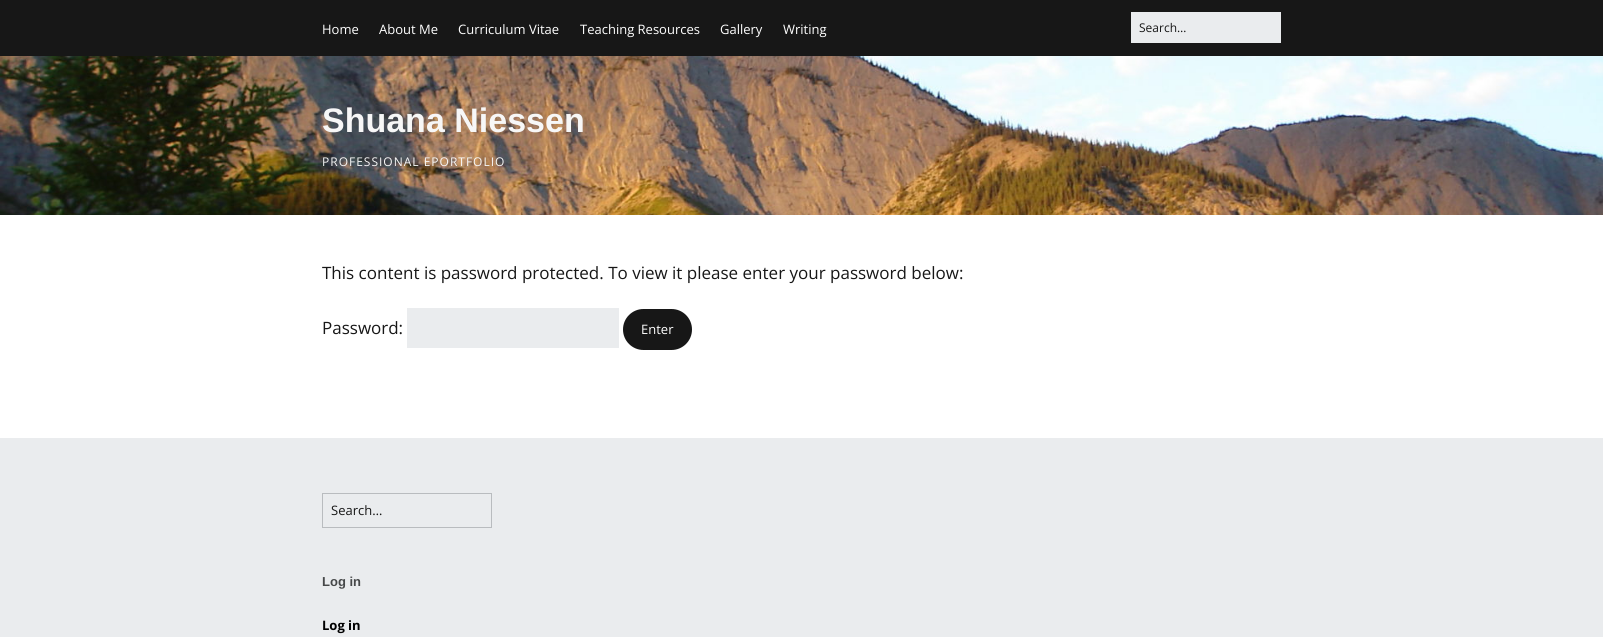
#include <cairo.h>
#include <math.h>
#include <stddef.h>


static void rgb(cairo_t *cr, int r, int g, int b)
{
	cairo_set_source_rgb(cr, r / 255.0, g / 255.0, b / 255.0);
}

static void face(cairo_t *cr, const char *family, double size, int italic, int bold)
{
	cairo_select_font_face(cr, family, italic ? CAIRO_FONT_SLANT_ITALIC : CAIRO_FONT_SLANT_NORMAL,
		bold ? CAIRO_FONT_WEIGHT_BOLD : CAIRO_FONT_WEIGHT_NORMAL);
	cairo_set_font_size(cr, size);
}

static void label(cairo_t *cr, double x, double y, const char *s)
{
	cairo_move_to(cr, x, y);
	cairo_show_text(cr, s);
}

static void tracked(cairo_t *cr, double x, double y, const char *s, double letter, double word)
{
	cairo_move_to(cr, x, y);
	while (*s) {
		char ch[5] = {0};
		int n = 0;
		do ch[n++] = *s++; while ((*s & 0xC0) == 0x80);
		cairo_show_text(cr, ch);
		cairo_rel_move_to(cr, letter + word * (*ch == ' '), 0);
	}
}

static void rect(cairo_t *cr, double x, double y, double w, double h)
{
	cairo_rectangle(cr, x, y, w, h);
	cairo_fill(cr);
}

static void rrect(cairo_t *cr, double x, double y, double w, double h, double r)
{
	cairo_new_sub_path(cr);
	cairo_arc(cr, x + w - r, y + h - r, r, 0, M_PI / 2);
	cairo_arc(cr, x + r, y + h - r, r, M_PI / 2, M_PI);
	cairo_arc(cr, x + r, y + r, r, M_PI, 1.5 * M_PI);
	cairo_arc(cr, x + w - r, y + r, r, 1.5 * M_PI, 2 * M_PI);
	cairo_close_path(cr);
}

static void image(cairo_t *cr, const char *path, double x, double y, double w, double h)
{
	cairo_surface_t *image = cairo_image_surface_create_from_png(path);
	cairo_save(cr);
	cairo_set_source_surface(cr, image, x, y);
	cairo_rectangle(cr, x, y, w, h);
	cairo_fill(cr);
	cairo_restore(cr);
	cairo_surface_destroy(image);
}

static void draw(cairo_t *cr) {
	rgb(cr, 23, 23, 23);
	cairo_paint(cr);
	face(cr, "Open Sans", 13, 0, 0);
	rgb(cr, 255, 255, 255);
	label(cr, 322, 34, "Home");
	label(cr, 379, 34, "About Me");
	label(cr, 458, 34, "Curriculum Vitae");
	label(cr, 580, 34, "Teaching Resources");
	label(cr, 720, 34, "Gallery");
	label(cr, 783, 34, "Writing");
	rgb(cr, 234, 236, 238);
	rect(cr, 1131, 12, 150, 31);
	face(cr, "Open Sans", 12, 0, 0);
	rgb(cr, 23, 23, 23);
	label(cr, 1139, 32, "Search…");
	image(cr, "image0.png", 0, 56, 1603, 159);
	face(cr, "Liberation Sans", 34, 0, 1);
	rgb(cr, 247, 247, 247);
	label(cr, 322, 132, "Shuana Niessen");
	face(cr, "Open Sans", 12, 0, 0);
	tracked(cr, 322, 166, "PROFESSIONAL EPORTFOLIO", 1, 0);
	rgb(cr, 255, 255, 255);
	rect(cr, 0, 215, 1603, 223);
	face(cr, "Open Sans", 17, 0, 0);
	rgb(cr, 23, 23, 23);
	label(cr, 322, 279, "This content is password protected. To view it please enter your password below:");
	label(cr, 322, 334, "Password:");
	rgb(cr, 234, 236, 238);
	rect(cr, 407, 308, 212, 40);
	rgb(cr, 23, 23, 23);
	rrect(cr, 623, 309, 69, 41, 20.5);
	cairo_fill(cr);
	face(cr, "Open Sans", 13, 0, 0);
	rgb(cr, 255, 255, 255);
	label(cr, 641, 334, "Enter");
	rgb(cr, 234, 236, 238);
	rect(cr, 0, 438, 1603, 199);
	cairo_rectangle(cr, 322.5, 493.5, 169, 34);
	rgb(cr, 185, 188, 191);
	cairo_set_line_width(cr, 1);
	cairo_stroke(cr);
	rgb(cr, 23, 23, 23);
	label(cr, 331, 515, "Search…");
	face(cr, "Liberation Sans", 13, 0, 1);
	rgb(cr, 70, 72, 73);
	label(cr, 322, 586, "Log in");
	face(cr, "Open Sans", 13, 0, 1);
	rgb(cr, 0, 0, 0);
	label(cr, 322, 630, "Log in");
}

int main(void) {
	cairo_surface_t *surface = cairo_image_surface_create(CAIRO_FORMAT_RGB24, 1603, 637);
	cairo_t *cr = cairo_create(surface);
	cairo_font_options_t *options = cairo_font_options_create();
	cairo_font_options_set_hint_metrics(options, CAIRO_HINT_METRICS_OFF);
	cairo_font_options_set_hint_style(options, CAIRO_HINT_STYLE_NONE);
	cairo_set_font_options(cr, options);
	cairo_set_miter_limit(cr, 4);
	draw(cr);
	cairo_surface_write_to_png(surface, "render.png");
	cairo_font_options_destroy(options);
	cairo_destroy(cr);
	cairo_surface_destroy(surface);
	return 0;
}
